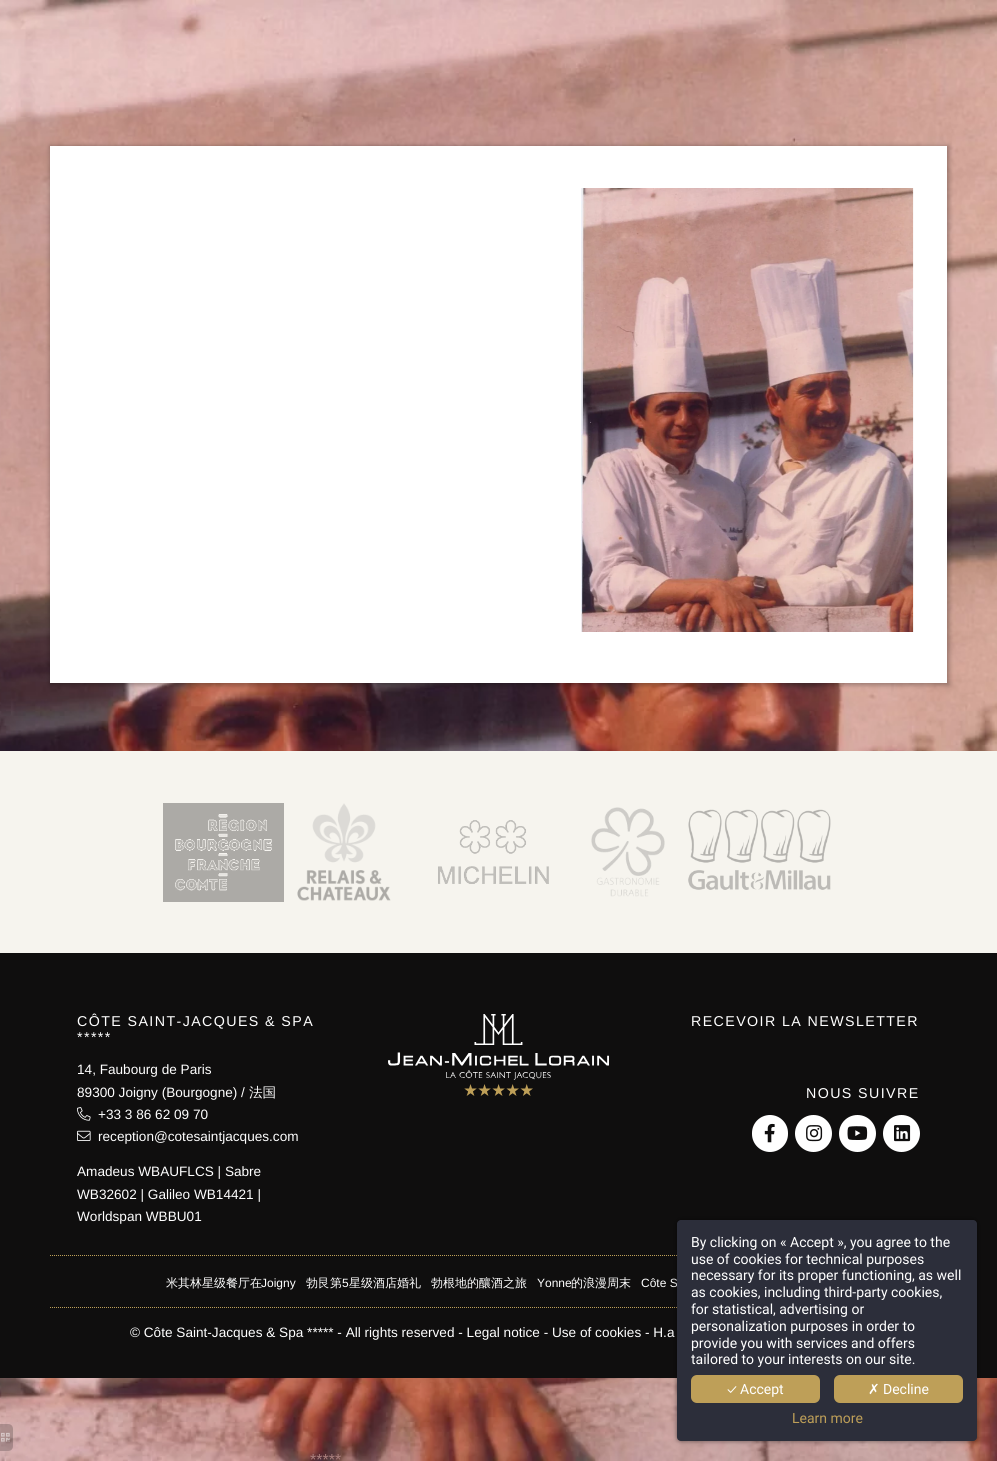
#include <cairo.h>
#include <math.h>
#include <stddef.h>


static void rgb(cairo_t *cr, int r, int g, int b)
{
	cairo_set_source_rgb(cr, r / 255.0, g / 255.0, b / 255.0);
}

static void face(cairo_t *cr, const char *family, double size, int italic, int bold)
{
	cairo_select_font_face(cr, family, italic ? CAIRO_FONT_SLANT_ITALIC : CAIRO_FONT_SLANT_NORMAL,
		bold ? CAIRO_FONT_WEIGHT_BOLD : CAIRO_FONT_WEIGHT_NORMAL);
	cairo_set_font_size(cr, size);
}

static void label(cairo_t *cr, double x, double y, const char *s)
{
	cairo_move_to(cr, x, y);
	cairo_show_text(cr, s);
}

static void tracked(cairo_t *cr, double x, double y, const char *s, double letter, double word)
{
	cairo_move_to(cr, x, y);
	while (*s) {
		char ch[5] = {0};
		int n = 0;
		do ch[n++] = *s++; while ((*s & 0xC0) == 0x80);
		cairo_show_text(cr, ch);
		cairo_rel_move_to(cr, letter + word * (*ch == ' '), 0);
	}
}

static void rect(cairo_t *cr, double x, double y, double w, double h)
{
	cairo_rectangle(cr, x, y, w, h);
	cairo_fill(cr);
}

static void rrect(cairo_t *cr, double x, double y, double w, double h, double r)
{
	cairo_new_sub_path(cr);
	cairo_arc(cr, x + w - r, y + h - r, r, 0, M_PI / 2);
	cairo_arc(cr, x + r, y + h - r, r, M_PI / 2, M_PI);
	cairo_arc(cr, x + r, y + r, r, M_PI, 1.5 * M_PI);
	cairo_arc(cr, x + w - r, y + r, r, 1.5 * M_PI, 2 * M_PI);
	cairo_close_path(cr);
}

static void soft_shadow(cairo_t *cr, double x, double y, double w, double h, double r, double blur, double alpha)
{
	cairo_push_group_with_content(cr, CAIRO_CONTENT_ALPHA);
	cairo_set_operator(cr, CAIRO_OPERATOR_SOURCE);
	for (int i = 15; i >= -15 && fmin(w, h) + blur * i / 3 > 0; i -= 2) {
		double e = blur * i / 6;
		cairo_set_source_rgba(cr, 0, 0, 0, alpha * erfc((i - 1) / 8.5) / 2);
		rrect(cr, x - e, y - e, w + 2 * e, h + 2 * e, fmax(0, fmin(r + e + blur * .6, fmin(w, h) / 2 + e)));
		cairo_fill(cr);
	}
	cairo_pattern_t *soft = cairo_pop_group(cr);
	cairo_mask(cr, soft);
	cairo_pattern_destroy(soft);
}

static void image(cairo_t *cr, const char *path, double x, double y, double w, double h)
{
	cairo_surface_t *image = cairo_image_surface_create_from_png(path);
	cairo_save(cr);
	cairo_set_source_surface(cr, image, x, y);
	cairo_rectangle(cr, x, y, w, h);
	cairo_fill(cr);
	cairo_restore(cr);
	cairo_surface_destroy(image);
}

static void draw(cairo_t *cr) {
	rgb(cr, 255, 255, 255);
	cairo_paint(cr);
	image(cr, "image0.png", 0, 0, 997, 1461);
	rgb(cr, 0, 0, 0);
	soft_shadow(cr, 50, 146, 899, 539, 0, 2.5, 0.3);
	rgb(cr, 255, 255, 255);
	rect(cr, 50, 146, 897, 537);
	image(cr, "image1.png", 581, 188, 333, 444);
	rgb(cr, 246, 244, 238);
	rect(cr, 0, 751, 997, 202);
	image(cr, "image2.png", 163, 803, 121, 99);
	image(cr, "image3.png", 297, 803, 94, 98);
	image(cr, "image4.png", 438, 820, 111, 64);
	image(cr, "image5.png", 591, 807, 74, 90);
	image(cr, "image6.png", 688, 809, 143, 81);
	rgb(cr, 15, 14, 14);
	rect(cr, 0, 953, 997, 425);
	face(cr, "Liberation Sans", 14.25, 0, 0);
	rgb(cr, 255, 255, 255);
	tracked(cr, 77, 1026, "CÔTE SAINT-JACQUES & SPA", 1.4, 0);
	tracked(cr, 77, 1042, "*****", 1.4, 0);
	face(cr, "Liberation Sans", 13.6, 0, 0);
	label(cr, 77, 1074, "14, Faubourg de Paris");
	label(cr, 77, 1097, "89300 Joigny (Bourgogne) /");
	face(cr, "WenQuanYi Zen Hei Medium", 13.6, 0, 0);
	label(cr, 249, 1097, "法国");
	image(cr, "image7.png", 77, 1107, 14, 14);
	face(cr, "Liberation Sans", 13.6, 0, 0);
	label(cr, 98, 1119, "+33 3 86 62 09 70");
	image(cr, "image8.png", 77, 1130, 14, 11);
	label(cr, 98, 1141, "reception@cotesaintjacques.com");
	label(cr, 77, 1176, "Amadeus WBAUFLCS | Sabre");
	label(cr, 77, 1199, "WB32602 | Galileo WB14421 |");
	label(cr, 77, 1221, "Worldspan WBBU01");
	image(cr, "image9.png", 388, 1014, 221, 82);
	face(cr, "Liberation Sans", 14.25, 0, 0);
	tracked(cr, 691, 1026, "RECEVOIR LA NEWSLETTER", 1.4, 0);
	tracked(cr, 806, 1098, "NOUS SUIVRE", 1.4, 0);
	rrect(cr, 752, 1115, 36, 37, 18);
	cairo_fill(cr);
	image(cr, "image10.png", 764, 1123, 11, 20);
	cairo_arc(cr, 813.5, 1133.5, 18.5, 0, 2 * M_PI);
	cairo_fill(cr);
	image(cr, "image11.png", 806, 1125, 17, 17);
	cairo_arc(cr, 857.5, 1133.5, 18.5, 0, 2 * M_PI);
	cairo_fill(cr);
	image(cr, "image12.png", 847, 1126, 21, 14);
	cairo_arc(cr, 901.5, 1133.5, 18.5, 0, 2 * M_PI);
	cairo_fill(cr);
	image(cr, "image13.png", 894, 1125, 17, 17);
	cairo_new_path(cr);
	cairo_move_to(cr, 50, 1255.5);
	cairo_line_to(cr, 947, 1255.5);
	rgb(cr, 190, 159, 88);
	cairo_set_line_width(cr, 1);
	cairo_set_dash(cr, (double[]){1, 1}, 2, 0);
	cairo_stroke(cr);
	cairo_new_path(cr);
	cairo_move_to(cr, 50, 1307.5);
	cairo_line_to(cr, 947, 1307.5);
	cairo_stroke(cr);
	face(cr, "WenQuanYi Zen Hei Medium", 12, 0, 0);
	rgb(cr, 255, 255, 255);
	label(cr, 166, 1287, "米其林星级餐厅在");
	face(cr, "Liberation Sans", 12, 0, 0);
	label(cr, 261, 1287, "Joigny");
	face(cr, "WenQuanYi Zen Hei Medium", 12, 0, 0);
	label(cr, 306, 1287, "勃艮第");
	face(cr, "Liberation Sans", 12, 0, 0);
	label(cr, 342, 1287, "5");
	face(cr, "WenQuanYi Zen Hei Medium", 12, 0, 0);
	label(cr, 349, 1287, "星级酒店婚礼");
	label(cr, 431, 1287, "勃根地的釀酒之旅");
	face(cr, "Liberation Sans", 12, 0, 0);
	label(cr, 537, 1287, "Yonne");
	face(cr, "WenQuanYi Zen Hei Medium", 12, 0, 0);
	label(cr, 571, 1287, "的浪漫周末");
	face(cr, "Liberation Sans", 12, 0, 0);
	label(cr, 641, 1287, "Côte S");
	face(cr, "Liberation Sans", 13.6, 0, 0);
	label(cr, 130, 1337, "© Côte Saint-Jacques & Spa ***** - All rights reserved - Legal notice - Use of cookies - H.a");
	rgb(cr, 0, 0, 0);
	soft_shadow(cr, 677, 1220, 300, 221, 4, 2.5, 0.5);
	rgb(cr, 44, 46, 58);
	rrect(cr, 677, 1220, 300, 221, 4);
	cairo_fill(cr);
	face(cr, "Roboto", 14, 0, 0);
	rgb(cr, 255, 255, 255);
	label(cr, 691, 1247, "By clicking on « Accept », you agree to the");
	label(cr, 691, 1264, "use of cookies for technical purposes");
	label(cr, 691, 1280, "necessary for its proper functioning, as well");
	label(cr, 691, 1297, "as cookies, including third-party cookies,");
	label(cr, 691, 1314, "for statistical, advertising or");
	label(cr, 691, 1331, "personalization purposes in order to");
	label(cr, 691, 1348, "provide you with services and offers");
	label(cr, 691, 1364, "tailored to your interests on our site.");
	rgb(cr, 190, 159, 88);
	rrect(cr, 691, 1375, 129, 28, 6);
	cairo_fill(cr);
	face(cr, "Ubuntu", 14, 0, 0);
	rgb(cr, 255, 255, 255);
	label(cr, 727, 1394, "✓");
	face(cr, "Roboto", 14, 0, 0);
	label(cr, 740, 1394, "Accept");
	rgb(cr, 190, 159, 88);
	rrect(cr, 834, 1375, 129, 28, 6);
	cairo_fill(cr);
	face(cr, "DejaVu Sans", 14, 0, 0);
	rgb(cr, 255, 255, 255);
	label(cr, 868, 1394, "✗");
	face(cr, "Roboto", 14, 0, 0);
	label(cr, 883, 1394, "Decline");
	rgb(cr, 190, 159, 88);
	label(cr, 792, 1423, "Learn more");
	cairo_set_source_rgba(cr, 0, 0, 0, 0.2);
	cairo_new_path(cr);
	cairo_move_to(cr, 0, 1424);
	cairo_line_to(cr, 8, 1424);
	cairo_curve_to(cr, 11, 1424, 13, 1426, 13, 1429);
	cairo_line_to(cr, 13, 1446);
	cairo_curve_to(cr, 13, 1449, 11, 1451, 8, 1451);
	cairo_line_to(cr, 0, 1451);
	cairo_close_path(cr);
	cairo_fill(cr);
	image(cr, "image14.png", 1, 1432, 9, 10);
	face(cr, "Liberation Sans", 16, 0, 0);
	rgb(cr, 171, 128, 126);
	label(cr, 310, 1465, "*****");
}

int main(void) {
	cairo_surface_t *surface = cairo_image_surface_create(CAIRO_FORMAT_RGB24, 997, 1461);
	cairo_t *cr = cairo_create(surface);
	cairo_font_options_t *options = cairo_font_options_create();
	cairo_font_options_set_hint_metrics(options, CAIRO_HINT_METRICS_OFF);
	cairo_font_options_set_hint_style(options, CAIRO_HINT_STYLE_NONE);
	cairo_set_font_options(cr, options);
	cairo_set_miter_limit(cr, 4);
	draw(cr);
	cairo_surface_write_to_png(surface, "render.png");
	cairo_font_options_destroy(options);
	cairo_destroy(cr);
	cairo_surface_destroy(surface);
	return 0;
}
